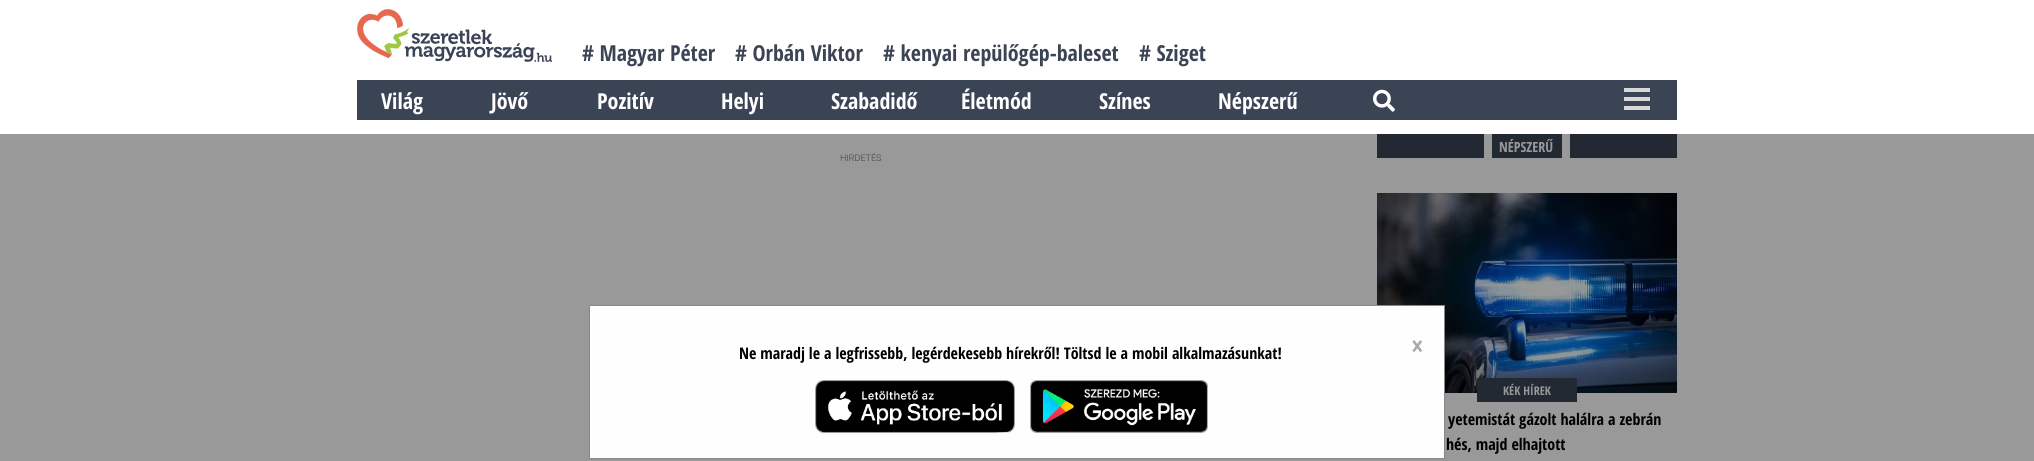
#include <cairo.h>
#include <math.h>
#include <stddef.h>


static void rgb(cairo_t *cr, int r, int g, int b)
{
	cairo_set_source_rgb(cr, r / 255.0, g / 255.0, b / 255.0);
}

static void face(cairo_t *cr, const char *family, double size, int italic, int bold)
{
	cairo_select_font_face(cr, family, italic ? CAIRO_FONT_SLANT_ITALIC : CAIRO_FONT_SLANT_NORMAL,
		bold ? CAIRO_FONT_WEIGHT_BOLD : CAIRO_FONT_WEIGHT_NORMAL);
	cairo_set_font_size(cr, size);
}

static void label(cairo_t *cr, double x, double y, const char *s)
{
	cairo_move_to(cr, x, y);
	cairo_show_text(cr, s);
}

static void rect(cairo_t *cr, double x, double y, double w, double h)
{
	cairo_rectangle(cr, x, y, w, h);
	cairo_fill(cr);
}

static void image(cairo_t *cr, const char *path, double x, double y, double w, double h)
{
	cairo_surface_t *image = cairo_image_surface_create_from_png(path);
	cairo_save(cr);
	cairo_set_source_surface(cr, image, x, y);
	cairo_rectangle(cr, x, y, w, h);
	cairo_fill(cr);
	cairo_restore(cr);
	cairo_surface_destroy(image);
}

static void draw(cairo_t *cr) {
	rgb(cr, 153, 153, 153);
	cairo_paint(cr);
	rgb(cr, 35, 41, 51);
	rect(cr, 1377, 134, 300, 24);
	rgb(cr, 153, 153, 153);
	rect(cr, 1562, 133, 8, 27);
	rect(cr, 1484, 133, 8, 27);
	rgb(cr, 255, 255, 255);
	rect(cr, 0, 0, 2034, 134);
	image(cr, "image0.png", 357, 9, 195, 53);
	face(cr, "Open Sans Condensed", 22, 0, 1);
	rgb(cr, 59, 68, 85);
	label(cr, 582, 61, "# Magyar Péter");
	label(cr, 735, 61, "# Orbán Viktor");
	label(cr, 883, 61, "# kenyai repülőgép-baleset");
	label(cr, 1139, 61, "# Sziget");
	rect(cr, 357, 80, 1320, 40);
	rgb(cr, 255, 255, 255);
	label(cr, 381, 109, "Világ");
	label(cr, 491, 109, "Jövő");
	label(cr, 597, 109, "Pozitív");
	label(cr, 721, 109, "Helyi");
	label(cr, 831, 109, "Szabadidő");
	label(cr, 961, 109, "Életmód");
	label(cr, 1099, 109, "Színes");
	label(cr, 1218, 109, "Népszerű");
	image(cr, "image1.png", 1373, 89, 22, 23);
	rgb(cr, 218, 217, 217);
	rect(cr, 1624, 88, 26, 4);
	rect(cr, 1624, 97, 26, 4);
	rect(cr, 1624, 106, 26, 4);
	face(cr, "Roboto Light", 9, 0, 0);
	rgb(cr, 62, 61, 67);
	label(cr, 840, 161, "HIRDETÉS");
	face(cr, "Open Sans Condensed", 14, 0, 1);
	rgb(cr, 153, 153, 153);
	label(cr, 1499, 152, "NÉPSZERŰ");
	image(cr, "image2.png", 1377, 193, 300, 200);
	rgb(cr, 35, 41, 51);
	rect(cr, 1477, 378, 100, 24);
	face(cr, "Open Sans Condensed", 12, 0, 1);
	rgb(cr, 153, 153, 153);
	label(cr, 1503, 395, "KÉK HÍREK");
	face(cr, "Open Sans Condensed", 16, 0, 1);
	rgb(cr, 0, 0, 0);
	label(cr, 1448, 425, "yetemistát gázolt halálra a zebrán");
	label(cr, 1446, 450, "hés, majd elhajtott");
	rgb(cr, 254, 254, 254);
	cairo_rectangle(cr, 589.5, 305.5, 855, 153);
	cairo_fill_preserve(cr);
	rgb(cr, 136, 136, 136);
	cairo_set_line_width(cr, 1);
	cairo_stroke(cr);
	rgb(cr, 0, 0, 0);
	label(cr, 739, 359, "Ne maradj le a legfrissebb, legérdekesebb hírekről! Töltsd le a mobil alkalmazásunkat!");
	face(cr, "Open Sans Condensed", 28, 0, 1);
	rgb(cr, 170, 170, 170);
	label(cr, 1411, 356, "×");
	image(cr, "image3.png", 815, 380, 200, 53);
	image(cr, "image4.png", 1030, 380, 178, 53);
}

int main(void) {
	cairo_surface_t *surface = cairo_image_surface_create(CAIRO_FORMAT_RGB24, 2034, 461);
	cairo_t *cr = cairo_create(surface);
	cairo_font_options_t *options = cairo_font_options_create();
	cairo_font_options_set_hint_metrics(options, CAIRO_HINT_METRICS_OFF);
	cairo_font_options_set_hint_style(options, CAIRO_HINT_STYLE_NONE);
	cairo_set_font_options(cr, options);
	cairo_set_miter_limit(cr, 4);
	draw(cr);
	cairo_surface_write_to_png(surface, "render.png");
	cairo_font_options_destroy(options);
	cairo_destroy(cr);
	cairo_surface_destroy(surface);
	return 0;
}
